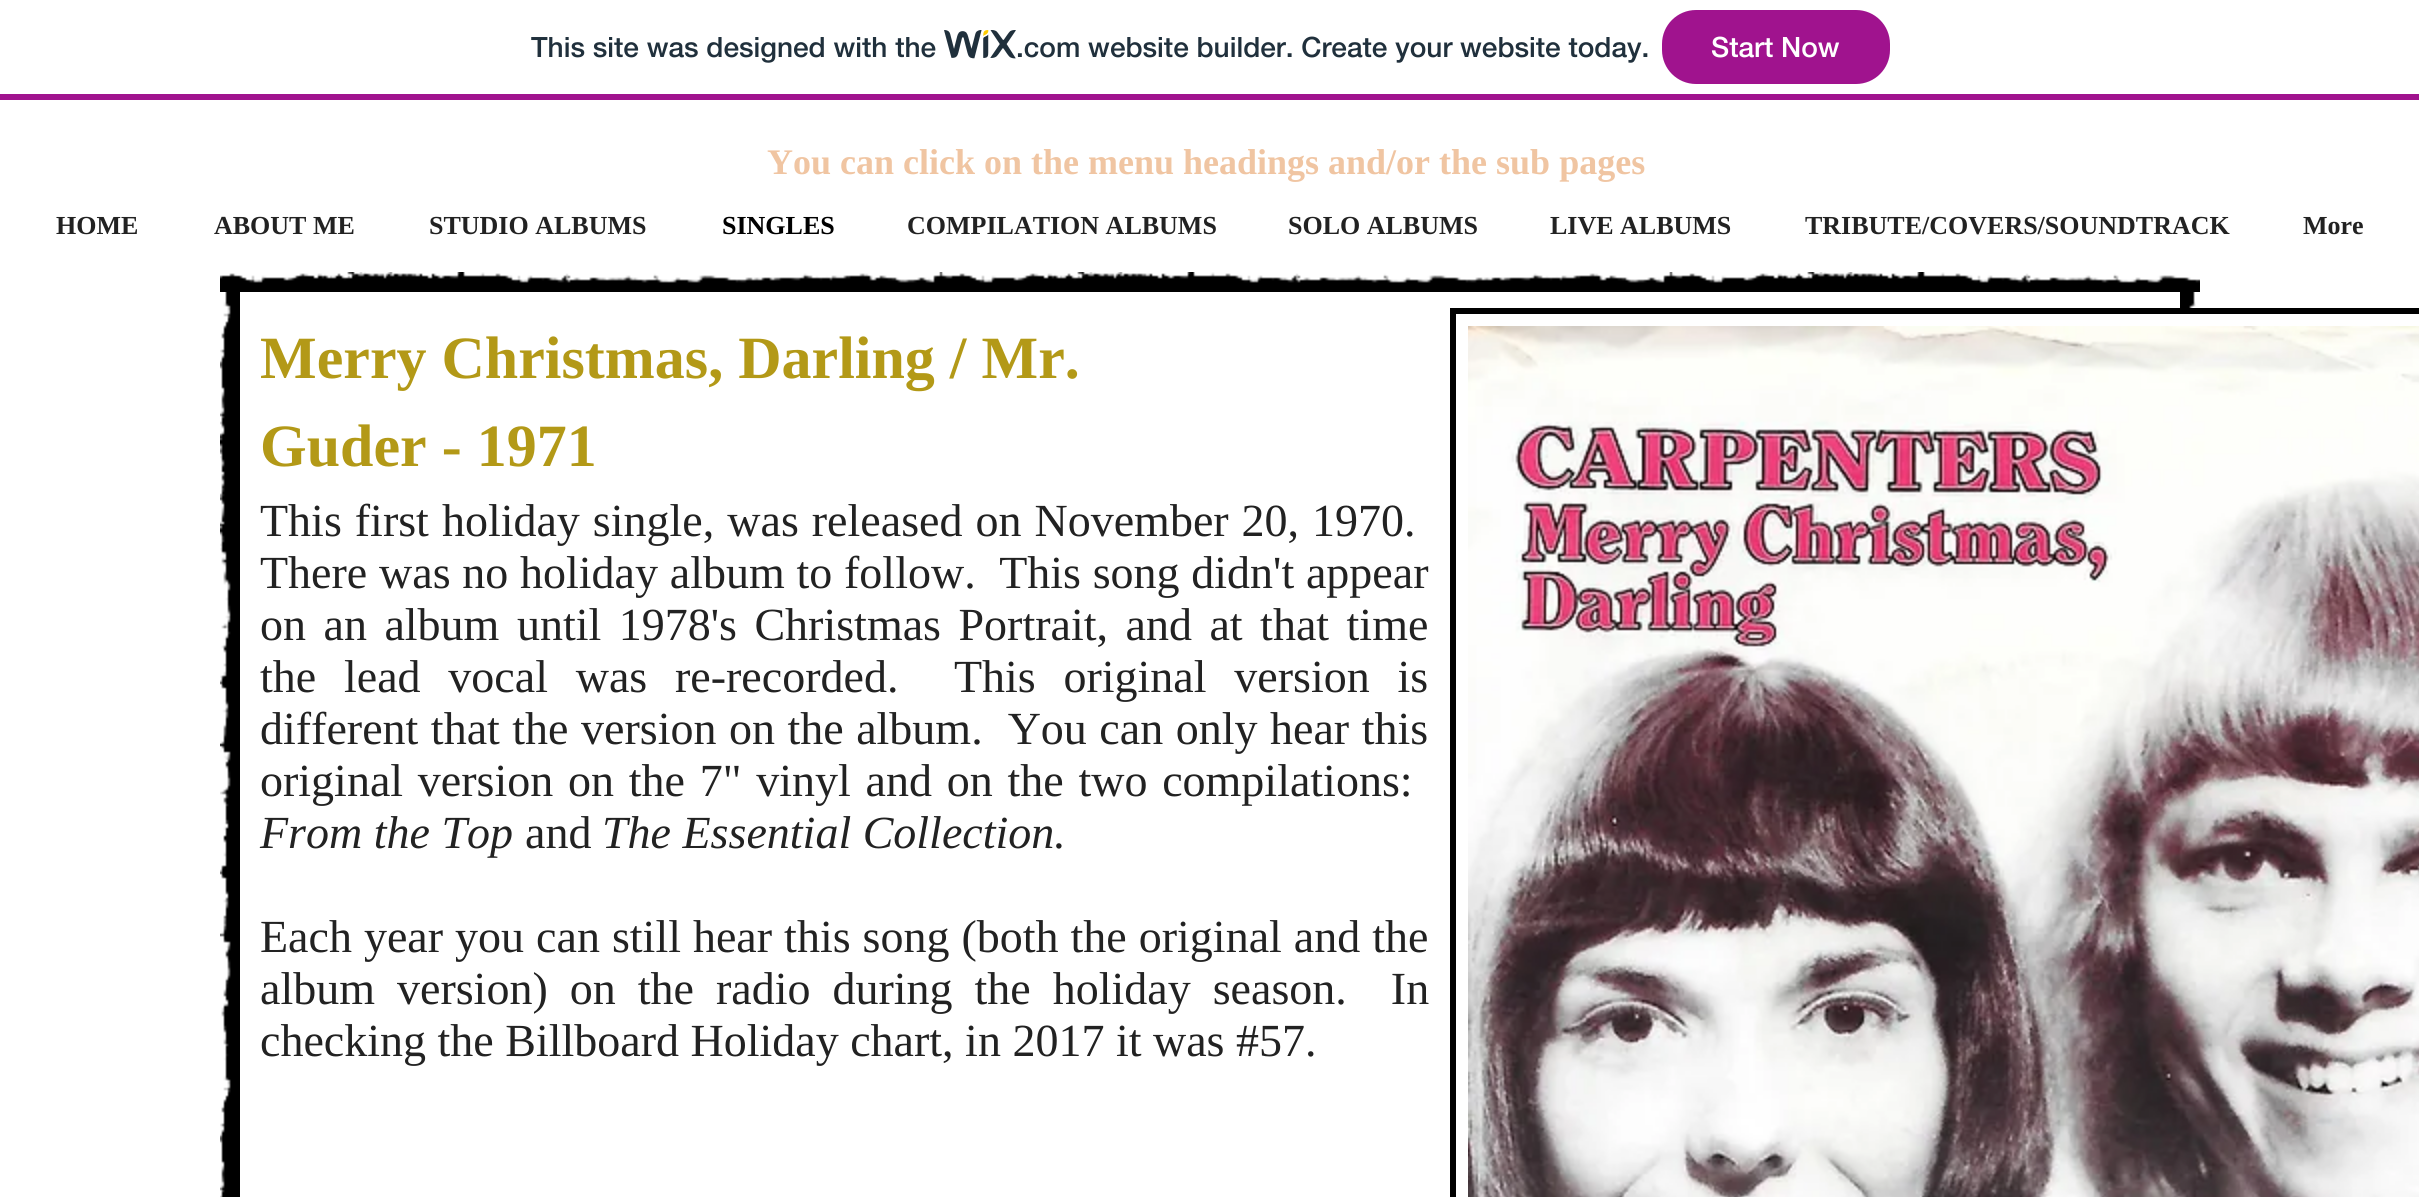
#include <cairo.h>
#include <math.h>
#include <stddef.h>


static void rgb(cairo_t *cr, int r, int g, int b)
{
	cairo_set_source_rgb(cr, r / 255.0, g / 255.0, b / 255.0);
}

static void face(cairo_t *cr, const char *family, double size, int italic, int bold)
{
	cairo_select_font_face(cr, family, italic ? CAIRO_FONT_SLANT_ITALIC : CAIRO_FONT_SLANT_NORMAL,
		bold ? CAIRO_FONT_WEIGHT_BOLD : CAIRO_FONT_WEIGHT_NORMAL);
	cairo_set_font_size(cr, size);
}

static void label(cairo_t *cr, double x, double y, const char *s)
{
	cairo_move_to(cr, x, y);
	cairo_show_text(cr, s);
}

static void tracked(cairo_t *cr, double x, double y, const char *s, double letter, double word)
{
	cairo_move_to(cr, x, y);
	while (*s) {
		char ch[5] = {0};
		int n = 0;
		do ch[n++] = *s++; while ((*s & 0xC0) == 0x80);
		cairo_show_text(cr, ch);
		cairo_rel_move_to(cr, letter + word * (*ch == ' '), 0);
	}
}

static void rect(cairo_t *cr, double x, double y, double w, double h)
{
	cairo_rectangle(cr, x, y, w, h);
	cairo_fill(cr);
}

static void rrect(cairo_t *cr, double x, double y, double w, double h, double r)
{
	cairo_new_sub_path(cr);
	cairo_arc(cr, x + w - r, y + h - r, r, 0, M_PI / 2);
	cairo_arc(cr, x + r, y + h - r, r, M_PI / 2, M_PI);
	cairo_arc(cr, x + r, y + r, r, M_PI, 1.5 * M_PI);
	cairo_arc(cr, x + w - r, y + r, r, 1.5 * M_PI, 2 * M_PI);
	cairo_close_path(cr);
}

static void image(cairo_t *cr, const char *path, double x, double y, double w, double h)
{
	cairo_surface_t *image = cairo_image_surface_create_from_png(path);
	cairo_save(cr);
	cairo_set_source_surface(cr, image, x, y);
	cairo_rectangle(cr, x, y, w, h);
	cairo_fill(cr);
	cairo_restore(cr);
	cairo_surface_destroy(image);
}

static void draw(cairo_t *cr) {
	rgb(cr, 255, 255, 255);
	cairo_paint(cr);
	rgb(cr, 160, 19, 142);
	rect(cr, 0, 94, 2419, 6);
	face(cr, "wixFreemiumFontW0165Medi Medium", 28, 0, 0);
	rgb(cr, 32, 48, 60);
	label(cr, 531, 57, "This site was designed with the");
	image(cr, "image0.png", 944, 30, 72, 29);
	label(cr, 1016, 57, ".com website builder. Create your website today.");
	rgb(cr, 160, 19, 142);
	rrect(cr, 1663, 11, 226, 72, 33);
	cairo_fill_preserve(cr);
	cairo_stroke(cr);
	rgb(cr, 255, 255, 255);
	label(cr, 1711, 57, "Start Now");
	face(cr, "Liberation Serif", 36, 0, 1);
	rgb(cr, 240, 197, 162);
	label(cr, 767, 174, "You can click on the menu headings and/or the sub pages");
	face(cr, "Liberation Serif", 26, 0, 1);
	rgb(cr, 34, 34, 34);
	label(cr, 56, 234, "HOME");
	label(cr, 214, 234, "ABOUT ME");
	label(cr, 429, 234, "STUDIO ALBUMS");
	rgb(cr, 0, 0, 0);
	label(cr, 722, 234, "SINGLES");
	rgb(cr, 34, 34, 34);
	label(cr, 907, 234, "COMPILATION ALBUMS");
	label(cr, 1288, 234, "SOLO ALBUMS");
	label(cr, 1550, 234, "LIVE ALBUMS");
	label(cr, 1805, 234, "TRIBUTE/COVERS/SOUNDTRACK");
	label(cr, 2303, 234, "More");
	image(cr, "image1.png", 220, 272, 1980, 20);
	image(cr, "image2.png", 220, 292, 20, 905);
	image(cr, "image3.png", 2180, 292, 16, 16);
	face(cr, "Liberation Serif", 60, 0, 1);
	rgb(cr, 179, 153, 23);
	label(cr, 260, 378, "Merry Christmas, Darling / Mr.");
	label(cr, 260, 466, "Guder - 1971");
	cairo_rectangle(cr, 1453, 311, 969, 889);
	rgb(cr, 0, 0, 0);
	cairo_set_line_width(cr, 6);
	cairo_stroke(cr);
	image(cr, "image4.png", 1468, 326, 951, 871);
	face(cr, "Liberation Serif", 46, 0, 0);
	rgb(cr, 34, 34, 34);
	tracked(cr, 260, 536, "This first holiday single, was released on November 20, 1970.", 0, 1.5);
	tracked(cr, 260, 588, "There was no holiday album to follow.  This song didn't appear", 0, 0.25);
	tracked(cr, 260, 640, "on an album until 1978's Christmas Portrait, and at that time", 0, 6);
	tracked(cr, 260, 692, "the lead vocal was re-recorded.  This original version is", 0, 16.25);
	tracked(cr, 260, 744, "different that the version on the album.  You can only hear this", 0, 1);
	tracked(cr, 260, 796, "original version on the 7\" vinyl and on the two compilations:", 0, 3.25);
	face(cr, "Liberation Serif", 46, 1, 0);
	label(cr, 260, 848, "From the Top");
	face(cr, "Liberation Serif", 46, 0, 0);
	label(cr, 525, 848, "and");
	face(cr, "Liberation Serif", 46, 1, 0);
	label(cr, 602, 848, "The Essential Collection.");
	face(cr, "Liberation Serif", 46, 0, 0);
	tracked(cr, 260, 952, "Each year you can still hear this song (both the original and the", 0, 0.5);
	tracked(cr, 260, 1004, "album version) on the radio during the holiday season.  In", 0, 10.5);
	label(cr, 260, 1056, "checking the Billboard Holiday chart, in 2017 it was #57.");
}

int main(void) {
	cairo_surface_t *surface = cairo_image_surface_create(CAIRO_FORMAT_RGB24, 2419, 1197);
	cairo_t *cr = cairo_create(surface);
	cairo_font_options_t *options = cairo_font_options_create();
	cairo_font_options_set_hint_metrics(options, CAIRO_HINT_METRICS_OFF);
	cairo_font_options_set_hint_style(options, CAIRO_HINT_STYLE_NONE);
	cairo_set_font_options(cr, options);
	cairo_set_miter_limit(cr, 4);
	draw(cr);
	cairo_surface_write_to_png(surface, "render.png");
	cairo_font_options_destroy(options);
	cairo_destroy(cr);
	cairo_surface_destroy(surface);
	return 0;
}
